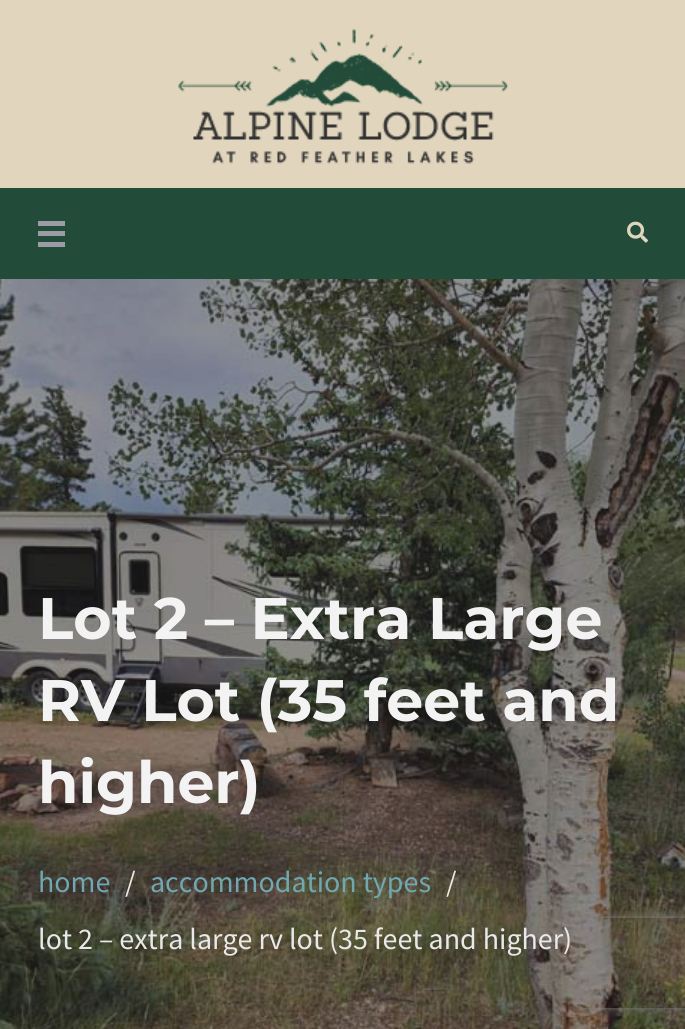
#include <cairo.h>
#include <math.h>
#include <stddef.h>


static void rgb(cairo_t *cr, int r, int g, int b)
{
	cairo_set_source_rgb(cr, r / 255.0, g / 255.0, b / 255.0);
}

static void face(cairo_t *cr, const char *family, double size, int italic, int bold)
{
	cairo_select_font_face(cr, family, italic ? CAIRO_FONT_SLANT_ITALIC : CAIRO_FONT_SLANT_NORMAL,
		bold ? CAIRO_FONT_WEIGHT_BOLD : CAIRO_FONT_WEIGHT_NORMAL);
	cairo_set_font_size(cr, size);
}

static void label(cairo_t *cr, double x, double y, const char *s)
{
	cairo_move_to(cr, x, y);
	cairo_show_text(cr, s);
}

static void rect(cairo_t *cr, double x, double y, double w, double h)
{
	cairo_rectangle(cr, x, y, w, h);
	cairo_fill(cr);
}

static void rrect(cairo_t *cr, double x, double y, double w, double h, double r)
{
	cairo_new_sub_path(cr);
	cairo_arc(cr, x + w - r, y + h - r, r, 0, M_PI / 2);
	cairo_arc(cr, x + r, y + h - r, r, M_PI / 2, M_PI);
	cairo_arc(cr, x + r, y + r, r, M_PI, 1.5 * M_PI);
	cairo_arc(cr, x + w - r, y + r, r, 1.5 * M_PI, 2 * M_PI);
	cairo_close_path(cr);
}

static void soft_shadow(cairo_t *cr, double x, double y, double w, double h, double r, double blur, double alpha)
{
	cairo_push_group_with_content(cr, CAIRO_CONTENT_ALPHA);
	cairo_set_operator(cr, CAIRO_OPERATOR_SOURCE);
	for (int i = 15; i >= -15 && fmin(w, h) + blur * i / 3 > 0; i -= 2) {
		double e = blur * i / 6;
		cairo_set_source_rgba(cr, 0, 0, 0, alpha * erfc((i - 1) / 8.5) / 2);
		rrect(cr, x - e, y - e, w + 2 * e, h + 2 * e, fmax(0, fmin(r + e + blur * .6, fmin(w, h) / 2 + e)));
		cairo_fill(cr);
	}
	cairo_pattern_t *soft = cairo_pop_group(cr);
	cairo_mask(cr, soft);
	cairo_pattern_destroy(soft);
}

static void image(cairo_t *cr, const char *path, double x, double y, double w, double h)
{
	cairo_surface_t *image = cairo_image_surface_create_from_png(path);
	cairo_save(cr);
	cairo_set_source_surface(cr, image, x, y);
	cairo_rectangle(cr, x, y, w, h);
	cairo_fill(cr);
	cairo_restore(cr);
	cairo_surface_destroy(image);
}

static void draw(cairo_t *cr) {
	rgb(cr, 225, 214, 189);
	cairo_paint(cr);
	image(cr, "image0.png", 178, 28, 330, 136);
	rgb(cr, 34, 76, 57);
	rect(cr, 0, 188, 685, 91);
	rgb(cr, 155, 156, 164);
	rect(cr, 38, 221, 27, 5);
	rect(cr, 38, 231, 27, 5);
	rect(cr, 38, 242, 27, 5);
	image(cr, "image1.png", 627, 221, 21, 22);
	image(cr, "image2.png", 0, 279, 685, 750);
	face(cr, "Montserrat", 58.5, 0, 1);
	rgb(cr, 243, 243, 243);
	label(cr, 38, 639, "Lot 2 – Extra Large");
	label(cr, 38, 721, "RV Lot (35 feet and");
	label(cr, 38, 803, "higher)");
	face(cr, "Source Sans Pro", 30, 0, 0);
	rgb(cr, 112, 167, 176);
	label(cr, 38, 892, "home");
	rgb(cr, 233, 233, 233);
	label(cr, 125, 892, "/");
	rgb(cr, 112, 167, 176);
	label(cr, 150, 892, "accommodation types");
	rgb(cr, 233, 233, 233);
	label(cr, 446, 892, "/");
	label(cr, 38, 949, "lot 2 – extra large rv lot (35 feet and higher)");
	cairo_save(cr);
	cairo_set_fill_rule(cr, CAIRO_FILL_RULE_EVEN_ODD);
	cairo_new_path(cr);
	cairo_move_to(cr, 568, 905);
	cairo_line_to(cr, 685, 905);
	cairo_line_to(cr, 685, 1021);
	cairo_line_to(cr, 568, 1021);
	cairo_close_path(cr);
	cairo_move_to(cr, 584, 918);
	cairo_line_to(cr, 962, 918);
	cairo_curve_to(cr, 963.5, 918, 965, 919.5, 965, 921);
	cairo_line_to(cr, 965, 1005);
	cairo_curve_to(cr, 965, 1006.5, 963.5, 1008, 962, 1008);
	cairo_line_to(cr, 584, 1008);
	cairo_curve_to(cr, 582.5, 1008, 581, 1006.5, 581, 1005);
	cairo_line_to(cr, 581, 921);
	cairo_curve_to(cr, 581, 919.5, 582.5, 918, 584, 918);
	cairo_close_path(cr);
	cairo_clip(cr);
	rgb(cr, 128, 128, 128);
	soft_shadow(cr, 581, 918, 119, 90, 3, 4, 1);
	cairo_restore(cr);
}

int main(void) {
	cairo_surface_t *surface = cairo_image_surface_create(CAIRO_FORMAT_RGB24, 685, 1029);
	cairo_t *cr = cairo_create(surface);
	cairo_font_options_t *options = cairo_font_options_create();
	cairo_font_options_set_hint_metrics(options, CAIRO_HINT_METRICS_OFF);
	cairo_font_options_set_hint_style(options, CAIRO_HINT_STYLE_NONE);
	cairo_set_font_options(cr, options);
	cairo_set_miter_limit(cr, 4);
	draw(cr);
	cairo_surface_write_to_png(surface, "render.png");
	cairo_font_options_destroy(options);
	cairo_destroy(cr);
	cairo_surface_destroy(surface);
	return 0;
}
